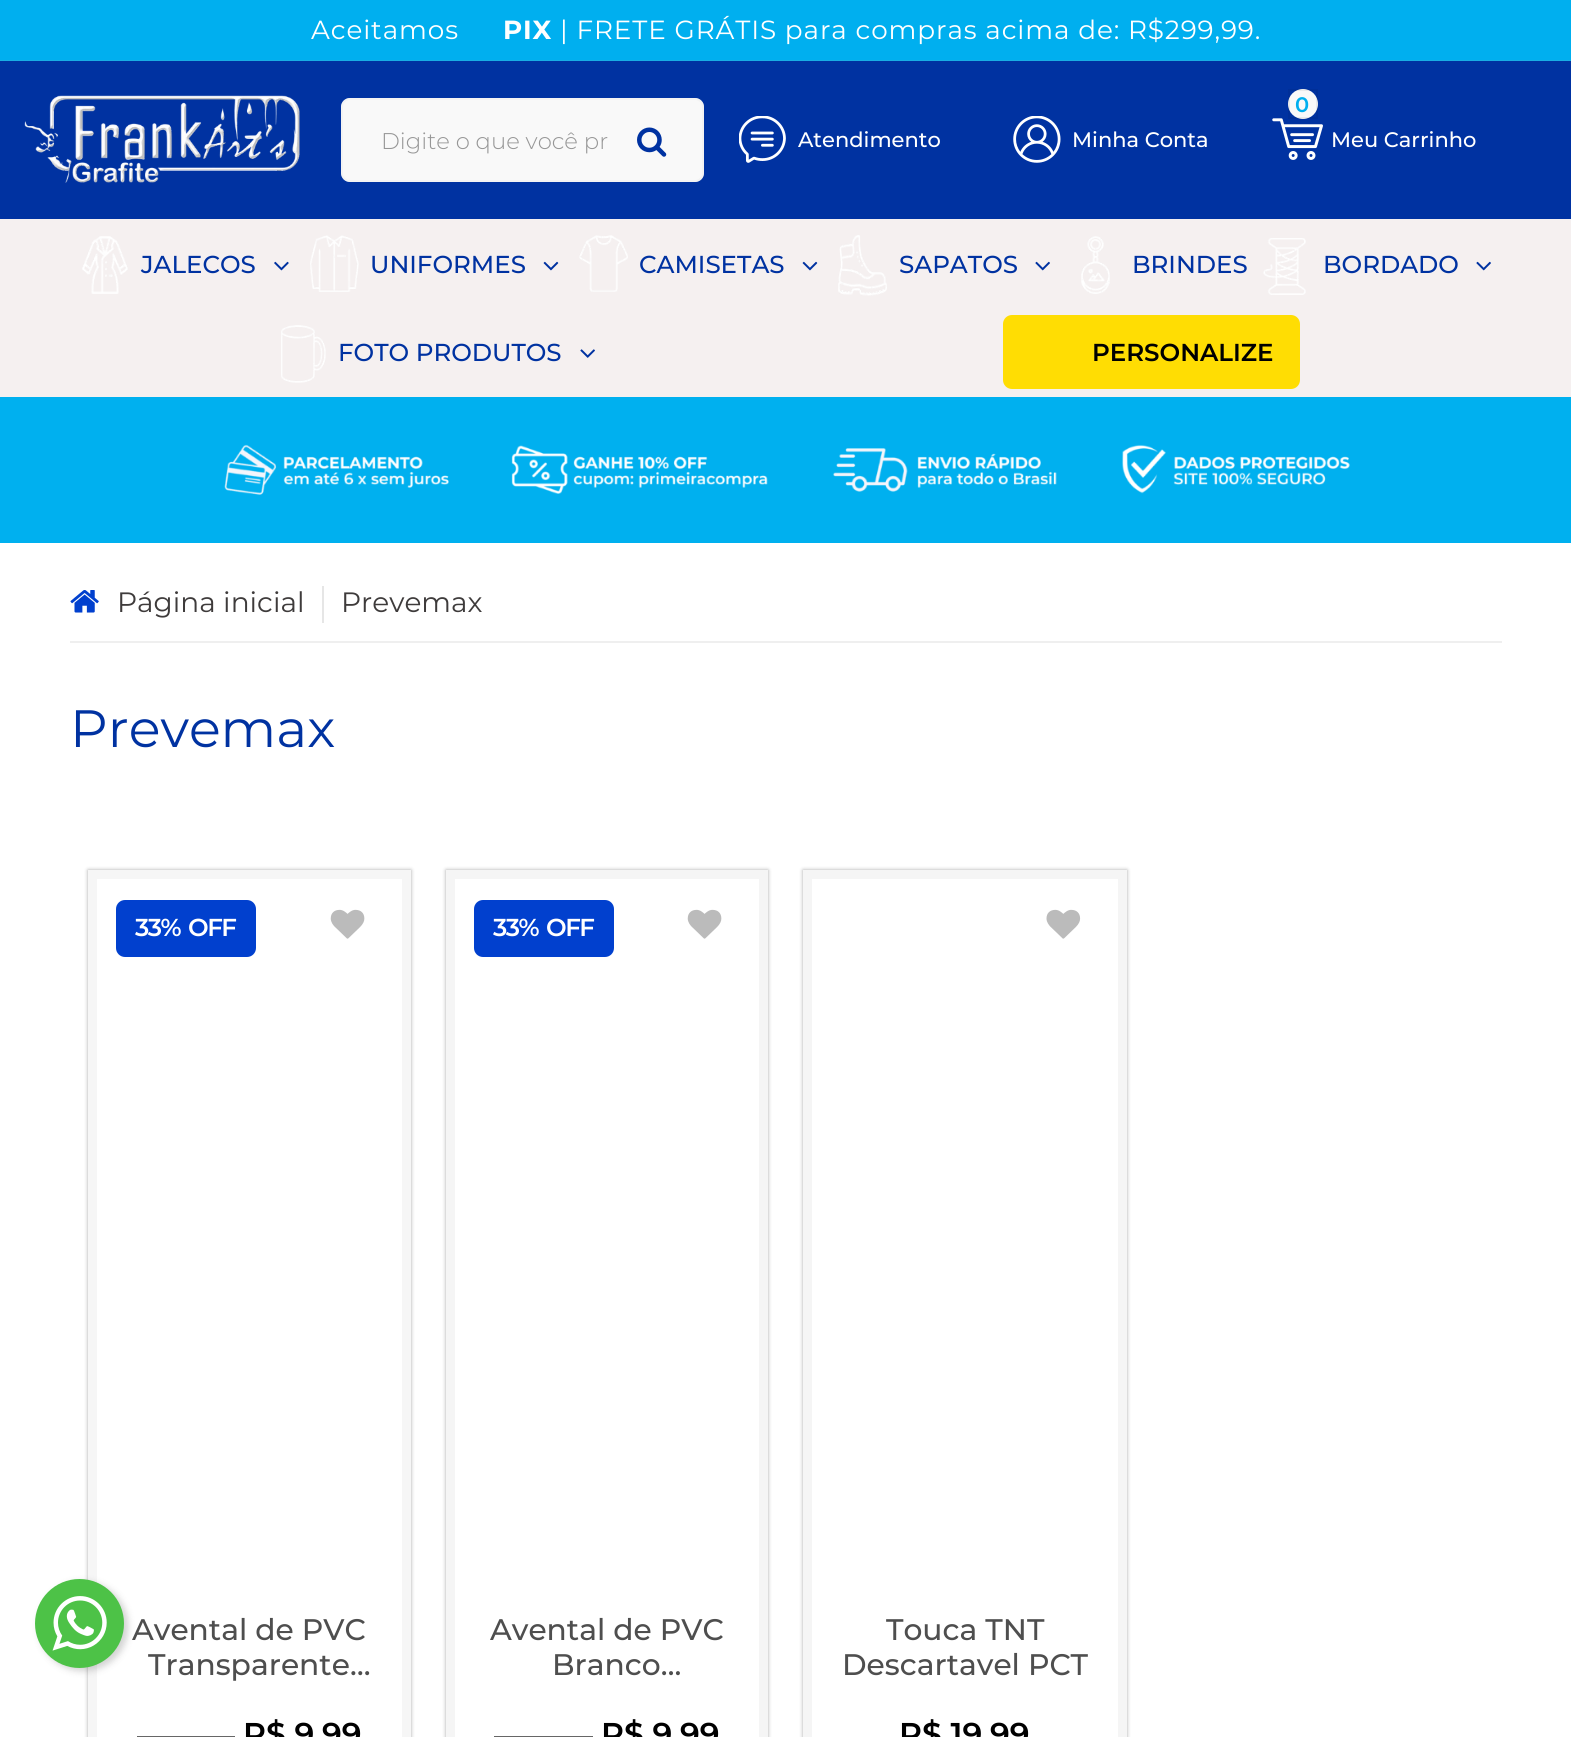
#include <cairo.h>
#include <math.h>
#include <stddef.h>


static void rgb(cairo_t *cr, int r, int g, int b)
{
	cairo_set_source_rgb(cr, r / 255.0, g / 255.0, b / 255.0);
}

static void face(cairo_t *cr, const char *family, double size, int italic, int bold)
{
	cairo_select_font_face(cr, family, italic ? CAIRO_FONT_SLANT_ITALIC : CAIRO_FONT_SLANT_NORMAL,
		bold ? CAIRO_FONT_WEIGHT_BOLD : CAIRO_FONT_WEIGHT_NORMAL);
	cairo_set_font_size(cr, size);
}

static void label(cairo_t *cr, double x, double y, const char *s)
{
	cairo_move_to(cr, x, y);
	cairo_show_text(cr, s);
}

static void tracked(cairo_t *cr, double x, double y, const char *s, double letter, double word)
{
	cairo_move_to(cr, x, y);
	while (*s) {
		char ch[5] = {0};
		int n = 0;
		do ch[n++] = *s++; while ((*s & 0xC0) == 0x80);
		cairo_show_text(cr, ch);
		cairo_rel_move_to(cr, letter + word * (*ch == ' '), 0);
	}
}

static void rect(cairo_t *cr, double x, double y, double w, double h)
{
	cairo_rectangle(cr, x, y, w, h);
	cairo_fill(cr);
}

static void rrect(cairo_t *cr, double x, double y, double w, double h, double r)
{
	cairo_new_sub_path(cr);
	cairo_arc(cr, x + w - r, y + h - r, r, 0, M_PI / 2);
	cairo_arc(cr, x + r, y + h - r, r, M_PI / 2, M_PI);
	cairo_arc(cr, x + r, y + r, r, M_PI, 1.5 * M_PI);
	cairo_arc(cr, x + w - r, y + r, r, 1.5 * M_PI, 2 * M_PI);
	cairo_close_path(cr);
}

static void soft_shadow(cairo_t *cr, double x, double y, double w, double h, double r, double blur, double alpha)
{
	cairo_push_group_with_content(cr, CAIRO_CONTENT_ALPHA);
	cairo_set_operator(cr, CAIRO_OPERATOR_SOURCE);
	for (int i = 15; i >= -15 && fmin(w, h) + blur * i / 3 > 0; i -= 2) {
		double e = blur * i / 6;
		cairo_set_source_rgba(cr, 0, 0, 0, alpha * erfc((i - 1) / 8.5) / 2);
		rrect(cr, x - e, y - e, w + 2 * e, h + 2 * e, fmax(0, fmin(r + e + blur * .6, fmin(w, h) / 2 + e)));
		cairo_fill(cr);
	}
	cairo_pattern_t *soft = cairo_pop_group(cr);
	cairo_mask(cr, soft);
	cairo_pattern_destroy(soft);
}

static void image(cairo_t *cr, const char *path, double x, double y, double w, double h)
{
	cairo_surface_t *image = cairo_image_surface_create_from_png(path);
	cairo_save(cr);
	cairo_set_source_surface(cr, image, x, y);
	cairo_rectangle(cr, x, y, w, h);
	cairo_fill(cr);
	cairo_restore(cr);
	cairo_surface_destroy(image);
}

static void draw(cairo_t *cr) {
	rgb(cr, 255, 255, 255);
	cairo_paint(cr);
	rgb(cr, 0, 175, 239);
	rect(cr, 0, 0, 1571, 60);
	rgb(cr, 25, 174, 228);
	rect(cr, 0, 60, 1571, 1);
	face(cr, "Montserrat", 26.25, 0, 0);
	rgb(cr, 255, 255, 255);
	tracked(cr, 311, 39, "Aceitamos", 0.9, 0);
	face(cr, "Montserrat", 26.25, 0, 1);
	tracked(cr, 503, 39, "PIX", 0.9, 0);
	face(cr, "Montserrat", 26.25, 0, 0);
	tracked(cr, 560, 39, "| FRETE GRÁTIS para compras acima de: R$299,99.", 0.9, 0);
	rgb(cr, 0, 50, 161);
	rect(cr, 0, 61, 1571, 158);
	image(cr, "image0.png", 24, 95, 276, 88);
	rgb(cr, 249, 249, 249);
	rrect(cr, 341, 98, 363, 84, 9);
	cairo_fill(cr);
	rrect(cr, 342, 99, 361, 82, 8);
	cairo_set_source_rgba(cr, 0.933, 0.933, 0.933, 0.57);
	cairo_stroke(cr);
	face(cr, "Montserrat Light", 22.75, 0, 0);
	rgb(cr, 150, 150, 150);
	label(cr, 381, 149, "Digite o que você pr");
	image(cr, "image1.png", 637, 127, 30, 30);
	image(cr, "image2.png", 739, 116, 47, 47);
	face(cr, "Montserrat Medium", 21, 0, 0);
	rgb(cr, 255, 255, 255);
	label(cr, 798, 147, "Atendimento");
	image(cr, "image3.png", 1013, 116, 48, 47);
	label(cr, 1072, 147, "Minha Conta");
	image(cr, "image4.png", 1272, 118, 51, 42);
	rgb(cr, 249, 249, 249);
	cairo_arc(cr, 1303, 104, 15, 0, 2 * M_PI);
	cairo_fill(cr);
	cairo_rectangle(cr, 1289, 90, 28, 28);
	cairo_set_source_rgba(cr, 0, 0, 0, 0.06);
	cairo_stroke(cr);
	face(cr, "Montserrat SemiBold", 21, 0, 0);
	rgb(cr, 0, 175, 239);
	label(cr, 1295, 112, "0");
	face(cr, "Montserrat Medium", 21, 0, 0);
	rgb(cr, 255, 255, 255);
	label(cr, 1331, 147, "Meu Carrinho");
	rgb(cr, 245, 240, 240);
	rect(cr, 0, 219, 1571, 178);
	image(cr, "image5.png", 82, 236, 46, 58);
	face(cr, "Montserrat Medium", 24.5, 0, 0);
	rgb(cr, 0, 50, 161);
	label(cr, 141, 273, "JALECOS");
	image(cr, "image6.png", 274, 261, 15, 10);
	image(cr, "image7.png", 310, 235, 49, 57);
	label(cr, 370, 273, "UNIFORMES");
	image(cr, "image8.png", 543, 261, 16, 10);
	image(cr, "image9.png", 579, 235, 49, 57);
	label(cr, 639, 273, "CAMISETAS");
	image(cr, "image8.png", 802, 261, 16, 10);
	image(cr, "image10.png", 838, 235, 49, 61);
	label(cr, 899, 273, "SAPATOS");
	image(cr, "image11.png", 1035, 261, 15, 10);
	image(cr, "image12.png", 1081, 236, 29, 58);
	label(cr, 1132, 273, "BRINDES");
	image(cr, "image13.png", 1263, 238, 43, 57);
	label(cr, 1323, 273, "BORDADO");
	image(cr, "image11.png", 1476, 261, 15, 10);
	image(cr, "image14.png", 281, 325, 45, 58);
	label(cr, 338, 361, "FOTO PRODUTOS");
	image(cr, "image15.png", 580, 349, 15, 9);
	rgb(cr, 255, 221, 3);
	rrect(cr, 1003, 315, 297, 74, 9);
	cairo_fill(cr);
	face(cr, "Montserrat SemiBold", 24.5, 0, 0);
	rgb(cr, 0, 0, 0);
	label(cr, 1092, 361, "PERSONALIZE");
	rgb(cr, 0, 176, 239);
	rect(cr, 0, 397, 1571, 146);
	image(cr, "image16.png", 224, 444, 1126, 51);
	rgb(cr, 239, 239, 239);
	rect(cr, 70, 641, 1432, 2);
	image(cr, "image17.png", 70, 590, 29, 23);
	face(cr, "Montserrat", 28, 0, 0);
	rgb(cr, 62, 59, 59);
	label(cr, 117, 612, "Página inicial");
	rgb(cr, 230, 230, 230);
	rect(cr, 322, 586, 2, 37);
	rgb(cr, 62, 59, 59);
	label(cr, 341, 612, "Prevemax");
	face(cr, "Montserrat", 52.5, 0, 0);
	rgb(cr, 0, 50, 161);
	label(cr, 70, 747, "Prevemax");
	cairo_save(cr);
	cairo_set_fill_rule(cr, CAIRO_FILL_RULE_EVEN_ODD);
	cairo_new_path(cr);
	cairo_move_to(cr, 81, 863);
	cairo_line_to(cr, 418, 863);
	cairo_line_to(cr, 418, 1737);
	cairo_line_to(cr, 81, 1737);
	cairo_close_path(cr);
	cairo_move_to(cr, 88, 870);
	cairo_line_to(cr, 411, 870);
	cairo_line_to(cr, 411, 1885);
	cairo_line_to(cr, 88, 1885);
	cairo_close_path(cr);
	cairo_clip(cr);
	rgb(cr, 0, 0, 0);
	soft_shadow(cr, 88, 870, 323, 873, 0, 2, 0.33);
	cairo_restore(cr);
	cairo_rectangle(cr, 92.5, 874.5, 314, 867);
	rgb(cr, 246, 246, 246);
	cairo_set_line_width(cr, 9);
	cairo_stroke(cr);
	rgb(cr, 1, 64, 206);
	rrect(cr, 116, 900, 140, 57, 9);
	cairo_fill(cr);
	face(cr, "Montserrat SemiBold", 24.5, 0, 0);
	rgb(cr, 255, 255, 255);
	tracked(cr, 135, 936, "33%", -1.5, 0);
	tracked(cr, 188, 936, "OFF", -1.5, 0);
	image(cr, "image18.png", 330, 909, 35, 30);
	face(cr, "Montserrat Medium", 29.75, 0, 0);
	rgb(cr, 78, 78, 78);
	label(cr, 132, 1640, "Avental de PVC");
	label(cr, 148, 1675, "Transparente…");
	rgb(cr, 102, 102, 102);
	rect(cr, 137, 1736, 98, 1);
	face(cr, "Montserrat SemiBold", 31.5, 0, 0);
	rgb(cr, 0, 0, 0);
	label(cr, 243, 1745, "R$ 9,99");
	cairo_save(cr);
	cairo_set_fill_rule(cr, CAIRO_FILL_RULE_EVEN_ODD);
	cairo_new_path(cr);
	cairo_move_to(cr, 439, 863);
	cairo_line_to(cr, 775, 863);
	cairo_line_to(cr, 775, 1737);
	cairo_line_to(cr, 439, 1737);
	cairo_close_path(cr);
	cairo_move_to(cr, 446, 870);
	cairo_line_to(cr, 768, 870);
	cairo_line_to(cr, 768, 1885);
	cairo_line_to(cr, 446, 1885);
	cairo_close_path(cr);
	cairo_clip(cr);
	rgb(cr, 0, 0, 0);
	soft_shadow(cr, 446, 870, 322, 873, 0, 2, 0.33);
	cairo_restore(cr);
	cairo_rectangle(cr, 450.5, 874.5, 313, 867);
	cairo_set_source_rgba(cr, 0, 0, 0, 0.04);
	cairo_stroke(cr);
	rgb(cr, 1, 64, 206);
	rrect(cr, 474, 900, 140, 57, 9);
	cairo_fill(cr);
	face(cr, "Montserrat SemiBold", 24.5, 0, 0);
	rgb(cr, 255, 255, 255);
	tracked(cr, 493, 936, "33%", -1.5, 0);
	tracked(cr, 546, 936, "OFF", -1.5, 0);
	image(cr, "image18.png", 687, 909, 35, 30);
	face(cr, "Montserrat Medium", 29.75, 0, 0);
	rgb(cr, 78, 78, 78);
	label(cr, 490, 1640, "Avental de PVC");
	label(cr, 552, 1675, "Branco…");
	rgb(cr, 102, 102, 102);
	rect(cr, 494, 1736, 99, 1);
	face(cr, "Montserrat SemiBold", 31.5, 0, 0);
	rgb(cr, 0, 0, 0);
	label(cr, 601, 1745, "R$ 9,99");
	cairo_save(cr);
	cairo_set_fill_rule(cr, CAIRO_FILL_RULE_EVEN_ODD);
	cairo_new_path(cr);
	cairo_move_to(cr, 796, 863);
	cairo_line_to(cr, 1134, 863);
	cairo_line_to(cr, 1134, 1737);
	cairo_line_to(cr, 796, 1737);
	cairo_close_path(cr);
	cairo_move_to(cr, 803, 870);
	cairo_line_to(cr, 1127, 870);
	cairo_line_to(cr, 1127, 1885);
	cairo_line_to(cr, 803, 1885);
	cairo_close_path(cr);
	cairo_clip(cr);
	rgb(cr, 0, 0, 0);
	soft_shadow(cr, 803, 870, 324, 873, 0, 2, 0.33);
	cairo_restore(cr);
	cairo_rectangle(cr, 807.5, 874.5, 315, 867);
	cairo_set_source_rgba(cr, 0, 0, 0, 0.04);
	cairo_stroke(cr);
	image(cr, "image19.png", 1046, 909, 35, 30);
	face(cr, "Montserrat Medium", 29.75, 0, 0);
	rgb(cr, 78, 78, 78);
	label(cr, 886, 1640, "Touca TNT");
	label(cr, 842, 1675, "Descartavel PCT");
	face(cr, "Montserrat SemiBold", 31.5, 0, 0);
	rgb(cr, 0, 0, 0);
	label(cr, 899, 1745, "R$ 19,99");
	rgb(cr, 0, 0, 0);
	soft_shadow(cr, 39, 1582, 89, 89, 44.5, 3.5, 0.18);
	rgb(cr, 77, 194, 71);
	cairo_arc(cr, 79.5, 1623.5, 44.5, 0, 2 * M_PI);
	cairo_fill(cr);
	image(cr, "image20.png", 52, 1596, 55, 55);
}

int main(void) {
	cairo_surface_t *surface = cairo_image_surface_create(CAIRO_FORMAT_RGB24, 1571, 1737);
	cairo_t *cr = cairo_create(surface);
	cairo_font_options_t *options = cairo_font_options_create();
	cairo_font_options_set_hint_metrics(options, CAIRO_HINT_METRICS_OFF);
	cairo_font_options_set_hint_style(options, CAIRO_HINT_STYLE_NONE);
	cairo_set_font_options(cr, options);
	cairo_set_miter_limit(cr, 4);
	draw(cr);
	cairo_surface_write_to_png(surface, "render.png");
	cairo_font_options_destroy(options);
	cairo_destroy(cr);
	cairo_surface_destroy(surface);
	return 0;
}
